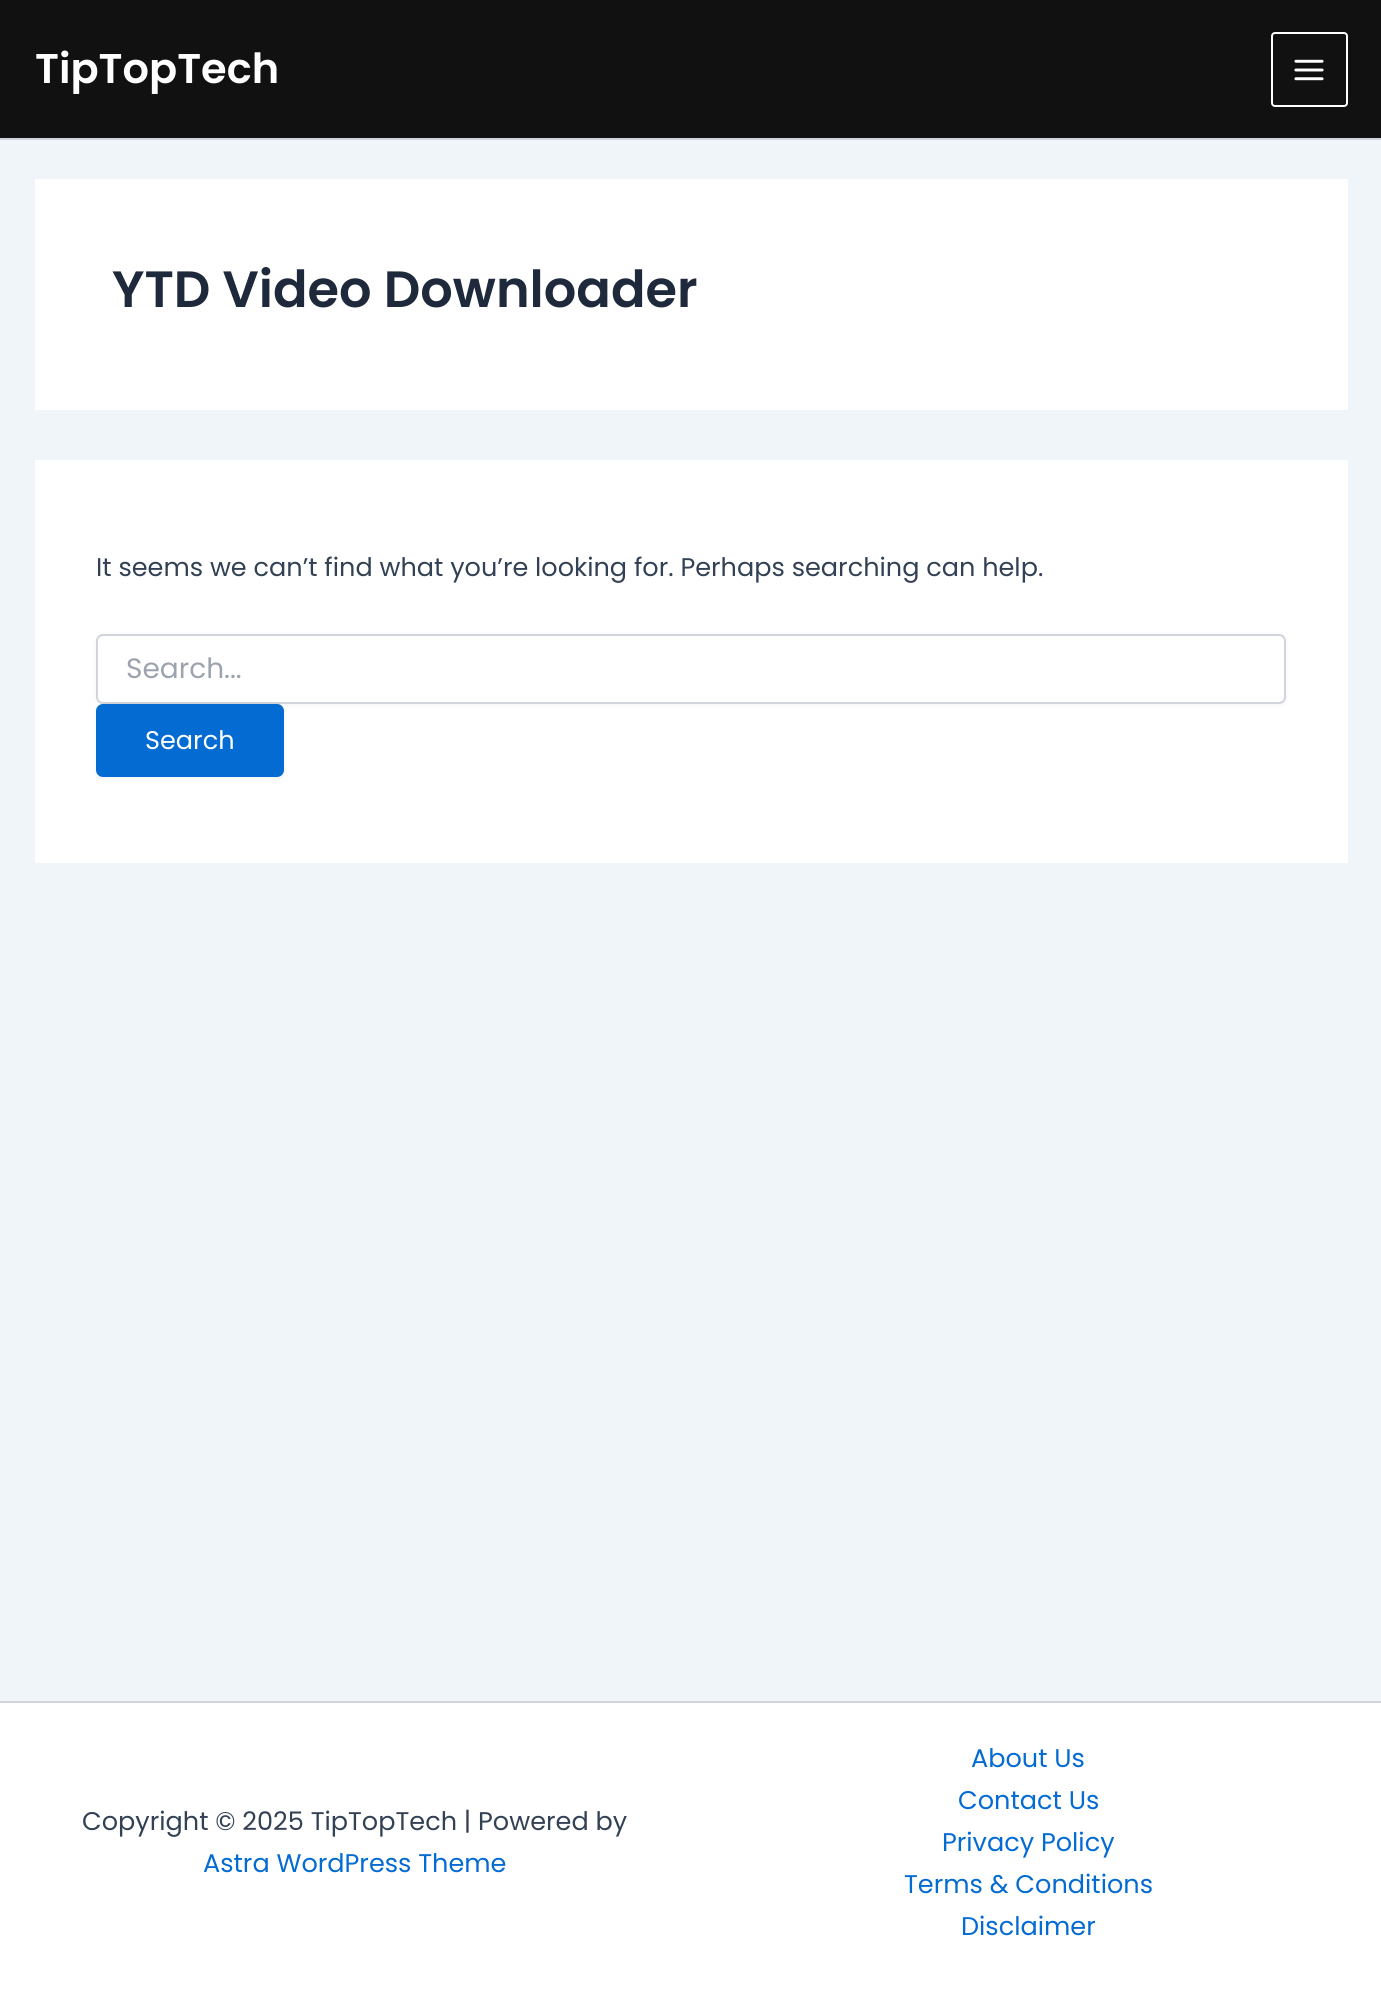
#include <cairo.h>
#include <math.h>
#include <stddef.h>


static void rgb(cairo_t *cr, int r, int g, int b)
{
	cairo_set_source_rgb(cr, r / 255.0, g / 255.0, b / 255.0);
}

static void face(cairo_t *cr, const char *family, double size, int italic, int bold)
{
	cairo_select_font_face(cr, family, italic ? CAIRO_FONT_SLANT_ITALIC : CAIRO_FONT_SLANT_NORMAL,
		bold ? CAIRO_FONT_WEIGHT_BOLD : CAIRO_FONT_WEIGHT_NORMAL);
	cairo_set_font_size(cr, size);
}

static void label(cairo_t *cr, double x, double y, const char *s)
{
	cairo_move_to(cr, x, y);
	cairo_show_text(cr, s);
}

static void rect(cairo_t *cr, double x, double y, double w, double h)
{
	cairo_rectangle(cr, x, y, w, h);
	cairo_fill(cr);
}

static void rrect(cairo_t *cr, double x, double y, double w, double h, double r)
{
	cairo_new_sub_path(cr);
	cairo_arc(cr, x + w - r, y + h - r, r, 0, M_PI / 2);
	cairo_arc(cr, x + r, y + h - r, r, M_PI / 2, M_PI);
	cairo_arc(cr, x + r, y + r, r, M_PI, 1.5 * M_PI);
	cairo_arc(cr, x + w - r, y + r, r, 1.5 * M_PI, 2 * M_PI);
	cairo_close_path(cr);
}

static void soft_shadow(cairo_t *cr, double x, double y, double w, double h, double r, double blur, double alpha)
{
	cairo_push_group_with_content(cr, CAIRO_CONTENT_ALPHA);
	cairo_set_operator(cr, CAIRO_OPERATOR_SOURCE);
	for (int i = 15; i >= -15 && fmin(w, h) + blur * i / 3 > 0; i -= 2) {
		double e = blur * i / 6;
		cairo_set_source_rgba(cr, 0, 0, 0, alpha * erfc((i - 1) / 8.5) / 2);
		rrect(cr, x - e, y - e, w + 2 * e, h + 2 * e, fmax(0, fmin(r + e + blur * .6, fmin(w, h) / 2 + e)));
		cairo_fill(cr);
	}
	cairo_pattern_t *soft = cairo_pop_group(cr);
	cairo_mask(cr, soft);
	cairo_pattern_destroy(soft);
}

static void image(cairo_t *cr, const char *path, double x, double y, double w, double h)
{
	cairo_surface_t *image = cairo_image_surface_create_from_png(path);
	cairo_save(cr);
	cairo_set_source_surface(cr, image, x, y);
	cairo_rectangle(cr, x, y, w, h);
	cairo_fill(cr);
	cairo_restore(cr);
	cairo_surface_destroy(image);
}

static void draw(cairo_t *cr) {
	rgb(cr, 240, 245, 250);
	cairo_paint(cr);
	rgb(cr, 17, 17, 17);
	rect(cr, 0, 0, 1381, 138);
	rgb(cr, 209, 213, 219);
	rect(cr, 0, 138, 1381, 2);
	face(cr, "Poppins SemiBold", 41.5, 0, 0);
	rgb(cr, 255, 255, 255);
	label(cr, 35, 83, "TipTopTech");
	rrect(cr, 1272, 33, 75, 73, 3);
	cairo_stroke(cr);
	image(cr, "image0.png", 1294, 59, 30, 22);
	rect(cr, 35, 179, 1313, 231);
	face(cr, "Poppins SemiBold", 51, 0, 0);
	rgb(cr, 30, 41, 59);
	label(cr, 112, 307, "YTD Video Downloader");
	rgb(cr, 255, 255, 255);
	rect(cr, 35, 460, 1313, 403);
	face(cr, "Poppins", 25.55, 0, 0);
	rgb(cr, 51, 65, 85);
	label(cr, 96, 576, "It seems we can’t find what you’re looking for. Perhaps searching can help.");
	rgb(cr, 0, 0, 0);
	soft_shadow(cr, 96, 635, 1190, 70, 7, 2, 0.05);
	rgb(cr, 255, 255, 255);
	rrect(cr, 97, 635, 1188, 68, 6);
	cairo_fill_preserve(cr);
	rgb(cr, 209, 213, 219);
	cairo_stroke(cr);
	face(cr, "Poppins", 28, 0, 0);
	rgb(cr, 156, 163, 175);
	label(cr, 126, 678, "Search...");
	rgb(cr, 0, 0, 0);
	soft_shadow(cr, 96, 705, 188, 74, 7, 2, 0.05);
	rgb(cr, 4, 107, 210);
	rrect(cr, 96, 704, 188, 73, 7);
	cairo_fill(cr);
	face(cr, "Poppins", 25.55, 0, 0);
	rgb(cr, 255, 255, 255);
	label(cr, 145, 749, "Search");
	rect(cr, 0, 1703, 1381, 296);
	rgb(cr, 209, 213, 219);
	rect(cr, 0, 1701, 1381, 2);
	rgb(cr, 51, 65, 85);
	label(cr, 82, 1830, "Copyright © 2025 TipTopTech | Powered by");
	rgb(cr, 4, 107, 210);
	label(cr, 203, 1872, "Astra WordPress Theme");
	label(cr, 971, 1767, "About Us");
	label(cr, 958, 1809, "Contact Us");
	label(cr, 942, 1851, "Privacy Policy");
	label(cr, 904, 1893, "Terms & Conditions");
	label(cr, 961, 1935, "Disclaimer");
}

int main(void) {
	cairo_surface_t *surface = cairo_image_surface_create(CAIRO_FORMAT_RGB24, 1381, 1999);
	cairo_t *cr = cairo_create(surface);
	cairo_font_options_t *options = cairo_font_options_create();
	cairo_font_options_set_hint_metrics(options, CAIRO_HINT_METRICS_OFF);
	cairo_font_options_set_hint_style(options, CAIRO_HINT_STYLE_NONE);
	cairo_set_font_options(cr, options);
	cairo_set_miter_limit(cr, 4);
	draw(cr);
	cairo_surface_write_to_png(surface, "render.png");
	cairo_font_options_destroy(options);
	cairo_destroy(cr);
	cairo_surface_destroy(surface);
	return 0;
}
